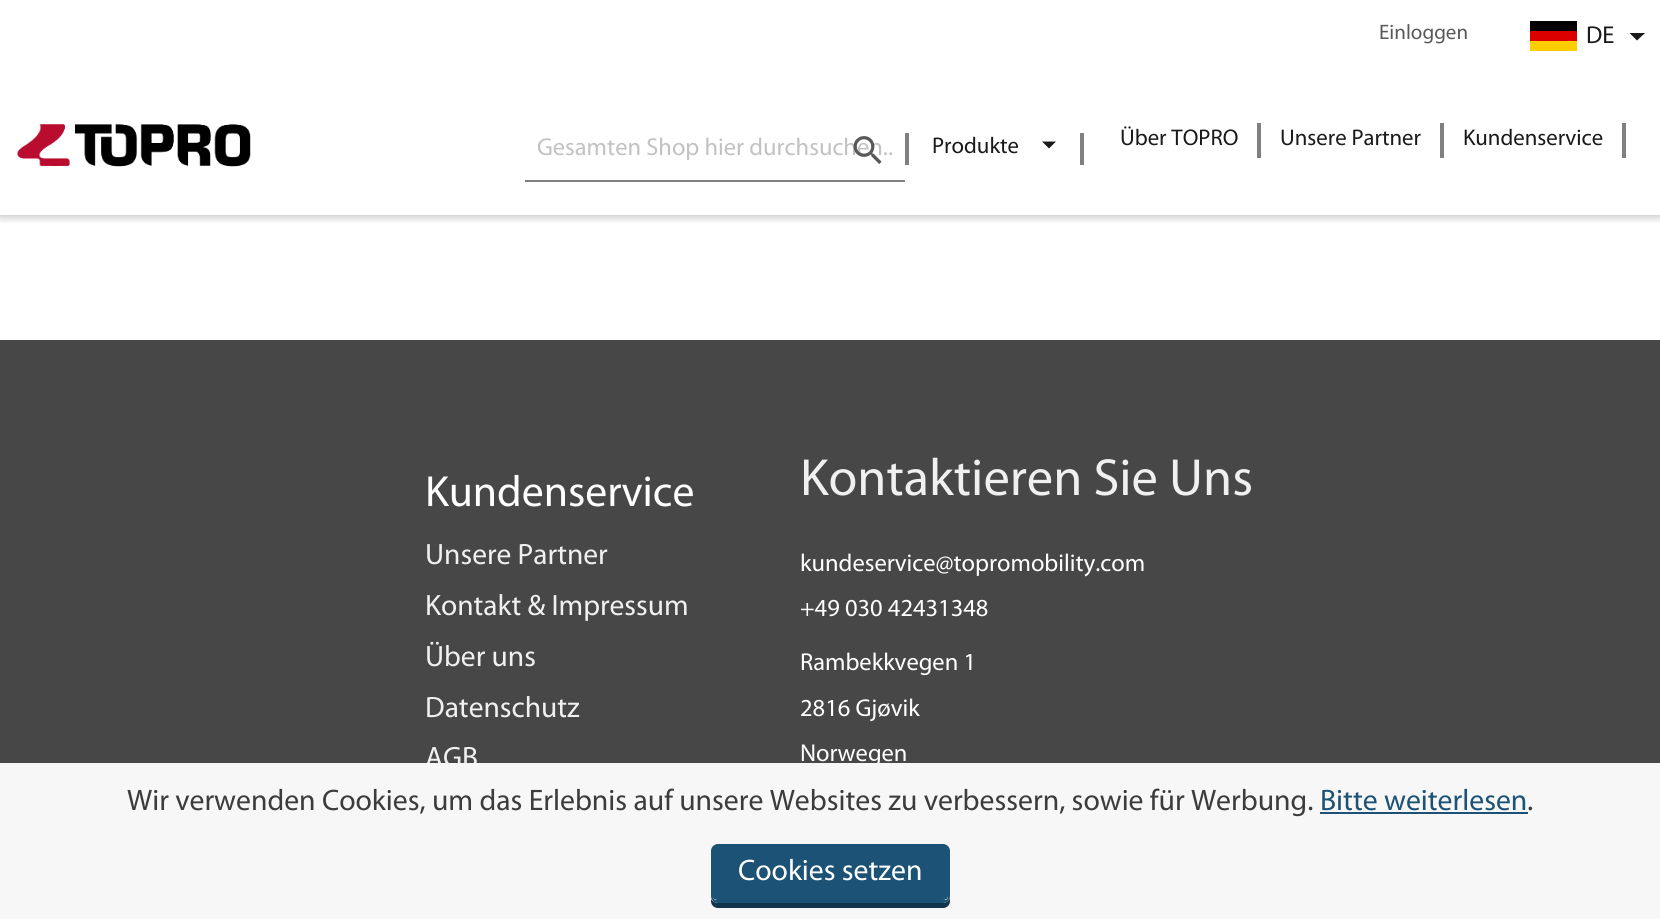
#include <cairo.h>
#include <math.h>
#include <stddef.h>


static void rgb(cairo_t *cr, int r, int g, int b)
{
	cairo_set_source_rgb(cr, r / 255.0, g / 255.0, b / 255.0);
}

static void face(cairo_t *cr, const char *family, double size, int italic, int bold)
{
	cairo_select_font_face(cr, family, italic ? CAIRO_FONT_SLANT_ITALIC : CAIRO_FONT_SLANT_NORMAL,
		bold ? CAIRO_FONT_WEIGHT_BOLD : CAIRO_FONT_WEIGHT_NORMAL);
	cairo_set_font_size(cr, size);
}

static void label(cairo_t *cr, double x, double y, const char *s)
{
	cairo_move_to(cr, x, y);
	cairo_show_text(cr, s);
}

static void rect(cairo_t *cr, double x, double y, double w, double h)
{
	cairo_rectangle(cr, x, y, w, h);
	cairo_fill(cr);
}

static void rrect(cairo_t *cr, double x, double y, double w, double h, double r)
{
	cairo_new_sub_path(cr);
	cairo_arc(cr, x + w - r, y + h - r, r, 0, M_PI / 2);
	cairo_arc(cr, x + r, y + h - r, r, M_PI / 2, M_PI);
	cairo_arc(cr, x + r, y + r, r, M_PI, 1.5 * M_PI);
	cairo_arc(cr, x + w - r, y + r, r, 1.5 * M_PI, 2 * M_PI);
	cairo_close_path(cr);
}

static void soft_shadow(cairo_t *cr, double x, double y, double w, double h, double r, double blur, double alpha)
{
	cairo_push_group_with_content(cr, CAIRO_CONTENT_ALPHA);
	cairo_set_operator(cr, CAIRO_OPERATOR_SOURCE);
	for (int i = 15; i >= -15 && fmin(w, h) + blur * i / 3 > 0; i -= 2) {
		double e = blur * i / 6;
		cairo_set_source_rgba(cr, 0, 0, 0, alpha * erfc((i - 1) / 8.5) / 2);
		rrect(cr, x - e, y - e, w + 2 * e, h + 2 * e, fmax(0, fmin(r + e + blur * .6, fmin(w, h) / 2 + e)));
		cairo_fill(cr);
	}
	cairo_pattern_t *soft = cairo_pop_group(cr);
	cairo_mask(cr, soft);
	cairo_pattern_destroy(soft);
}

static void image(cairo_t *cr, const char *path, double x, double y, double w, double h)
{
	cairo_surface_t *image = cairo_image_surface_create_from_png(path);
	cairo_save(cr);
	cairo_set_source_surface(cr, image, x, y);
	cairo_rectangle(cr, x, y, w, h);
	cairo_fill(cr);
	cairo_restore(cr);
	cairo_surface_destroy(image);
}

static void draw(cairo_t *cr) {
	rgb(cr, 255, 255, 255);
	cairo_paint(cr);
	cairo_save(cr);
	cairo_rectangle(cr, 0, 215, 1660, 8);
	cairo_clip(cr);
	rgb(cr, 0, 0, 0);
	soft_shadow(cr, 0, 2, 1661, 215, 0, 4.5, 0.25);
	cairo_restore(cr);
	face(cr, "Myriad", 21, 0, 0);
	rgb(cr, 89, 89, 89);
	label(cr, 1379, 39, "Einloggen");
	rgb(cr, 0, 0, 0);
	rect(cr, 1530, 21, 47, 10);
	rgb(cr, 221, 0, 0);
	rect(cr, 1530, 31, 47, 10);
	rgb(cr, 255, 206, 0);
	rect(cr, 1530, 41, 47, 10);
	face(cr, "Myriad", 24.5, 0, 0);
	rgb(cr, 26, 26, 26);
	label(cr, 1586, 43, "DE");
	cairo_new_path(cr);
	cairo_move_to(cr, 1629.5, 33);
	cairo_line_to(cr, 1645, 33);
	cairo_line_to(cr, 1637, 40.5);
	cairo_close_path(cr);
	cairo_fill(cr);
	image(cr, "image0.png", 17, 124, 234, 43);
	rgb(cr, 194, 194, 194);
	label(cr, 537, 155, "Gesamten Shop hier durchsuchen..");
	image(cr, "image1.png", 853, 136, 29, 28);
	rgb(cr, 128, 128, 128);
	rect(cr, 525, 180, 380, 2);
	rect(cr, 1080, 133, 4, 32);
	rect(cr, 905, 133, 4, 32);
	face(cr, "Myriad", 22.75, 0, 0);
	rgb(cr, 26, 26, 26);
	label(cr, 932, 153, "Produkte");
	cairo_new_path(cr);
	cairo_move_to(cr, 1042, 141.5);
	cairo_line_to(cr, 1056, 141.5);
	cairo_line_to(cr, 1049, 148.5);
	cairo_close_path(cr);
	cairo_fill(cr);
	rgb(cr, 128, 128, 128);
	rect(cr, 1257, 123, 4, 35);
	rgb(cr, 26, 26, 26);
	label(cr, 1120, 145, "Über TOPRO");
	rgb(cr, 128, 128, 128);
	rect(cr, 1440, 123, 4, 35);
	rgb(cr, 26, 26, 26);
	label(cr, 1280, 145, "Unsere Partner");
	rgb(cr, 128, 128, 128);
	rect(cr, 1622, 123, 4, 35);
	rgb(cr, 26, 26, 26);
	label(cr, 1463, 145, "Kundenservice");
	rgb(cr, 71, 71, 71);
	rect(cr, 0, 340, 1660, 423);
	face(cr, "Myriad", 43.75, 0, 0);
	rgb(cr, 255, 255, 255);
	label(cr, 425, 506, "Kundenservice");
	face(cr, "Myriad", 29.5, 0, 0);
	rgb(cr, 240, 240, 240);
	label(cr, 425, 564, "Unsere Partner");
	label(cr, 425, 615, "Kontakt & Impressum");
	label(cr, 425, 666, "Über uns");
	label(cr, 425, 717, "Datenschutz");
	label(cr, 425, 767, "AGB");
	face(cr, "Myriad", 52.5, 0, 0);
	label(cr, 800, 495, "Kontaktieren Sie Uns");
	face(cr, "Myriad", 24.5, 0, 0);
	rgb(cr, 255, 255, 255);
	label(cr, 800, 571, "kundeservice@topromobility.com");
	label(cr, 800, 616, "+49 030 42431348");
	label(cr, 800, 670, "Rambekkvegen 1");
	label(cr, 800, 716, "2816 Gjøvik");
	label(cr, 800, 761, "Norwegen");
	rgb(cr, 247, 247, 247);
	rect(cr, 0, 763, 1660, 156);
	face(cr, "Myriad", 29.75, 0, 0);
	rgb(cr, 60, 60, 60);
	label(cr, 127, 810, "Wir verwenden Cookies, um das Erlebnis auf unsere Websites zu verbessern, sowie für Werbung.");
	rgb(cr, 28, 82, 117);
	label(cr, 1320, 810, "Bitte weiterlesen");
	rect(cr, 1320, 812, 208, 2);
	rgb(cr, 60, 60, 60);
	label(cr, 1527, 810, ".");
	rgb(cr, 18, 53, 76);
	cairo_new_path(cr);
	cairo_move_to(cr, 711, 899);
	cairo_line_to(cr, 711, 901);
	cairo_curve_to(cr, 711, 905, 714, 908, 718, 908);
	cairo_line_to(cr, 943, 908);
	cairo_curve_to(cr, 947, 908, 950, 905, 950, 901);
	cairo_line_to(cr, 950, 898);
	cairo_curve_to(cr, 949, 901, 946, 903, 943, 903);
	cairo_line_to(cr, 718, 903);
	cairo_curve_to(cr, 715, 903, 712, 901, 711, 899);
	cairo_close_path(cr);
	cairo_fill(cr);
	rgb(cr, 28, 82, 117);
	cairo_new_path(cr);
	cairo_move_to(cr, 718, 845);
	cairo_line_to(cr, 943, 845);
	cairo_curve_to(cr, 946, 845, 948, 848, 948, 850);
	cairo_line_to(cr, 948, 896);
	cairo_curve_to(cr, 948, 898, 946, 900, 943, 900);
	cairo_line_to(cr, 718, 900);
	cairo_curve_to(cr, 715, 900, 712, 898, 712, 896);
	cairo_line_to(cr, 712, 850);
	cairo_curve_to(cr, 712, 848, 715, 845, 718, 845);
	cairo_close_path(cr);
	cairo_fill(cr);
	rrect(cr, 712, 845, 237, 57, 6);
	cairo_stroke(cr);
	rect(cr, 714, 900, 233, 2);
	rgb(cr, 255, 255, 255);
	label(cr, 738, 880, "Cookies setzen");
}

int main(void) {
	cairo_surface_t *surface = cairo_image_surface_create(CAIRO_FORMAT_RGB24, 1660, 919);
	cairo_t *cr = cairo_create(surface);
	cairo_font_options_t *options = cairo_font_options_create();
	cairo_font_options_set_hint_metrics(options, CAIRO_HINT_METRICS_OFF);
	cairo_font_options_set_hint_style(options, CAIRO_HINT_STYLE_NONE);
	cairo_set_font_options(cr, options);
	cairo_set_miter_limit(cr, 4);
	draw(cr);
	cairo_surface_write_to_png(surface, "render.png");
	cairo_font_options_destroy(options);
	cairo_destroy(cr);
	cairo_surface_destroy(surface);
	return 0;
}
